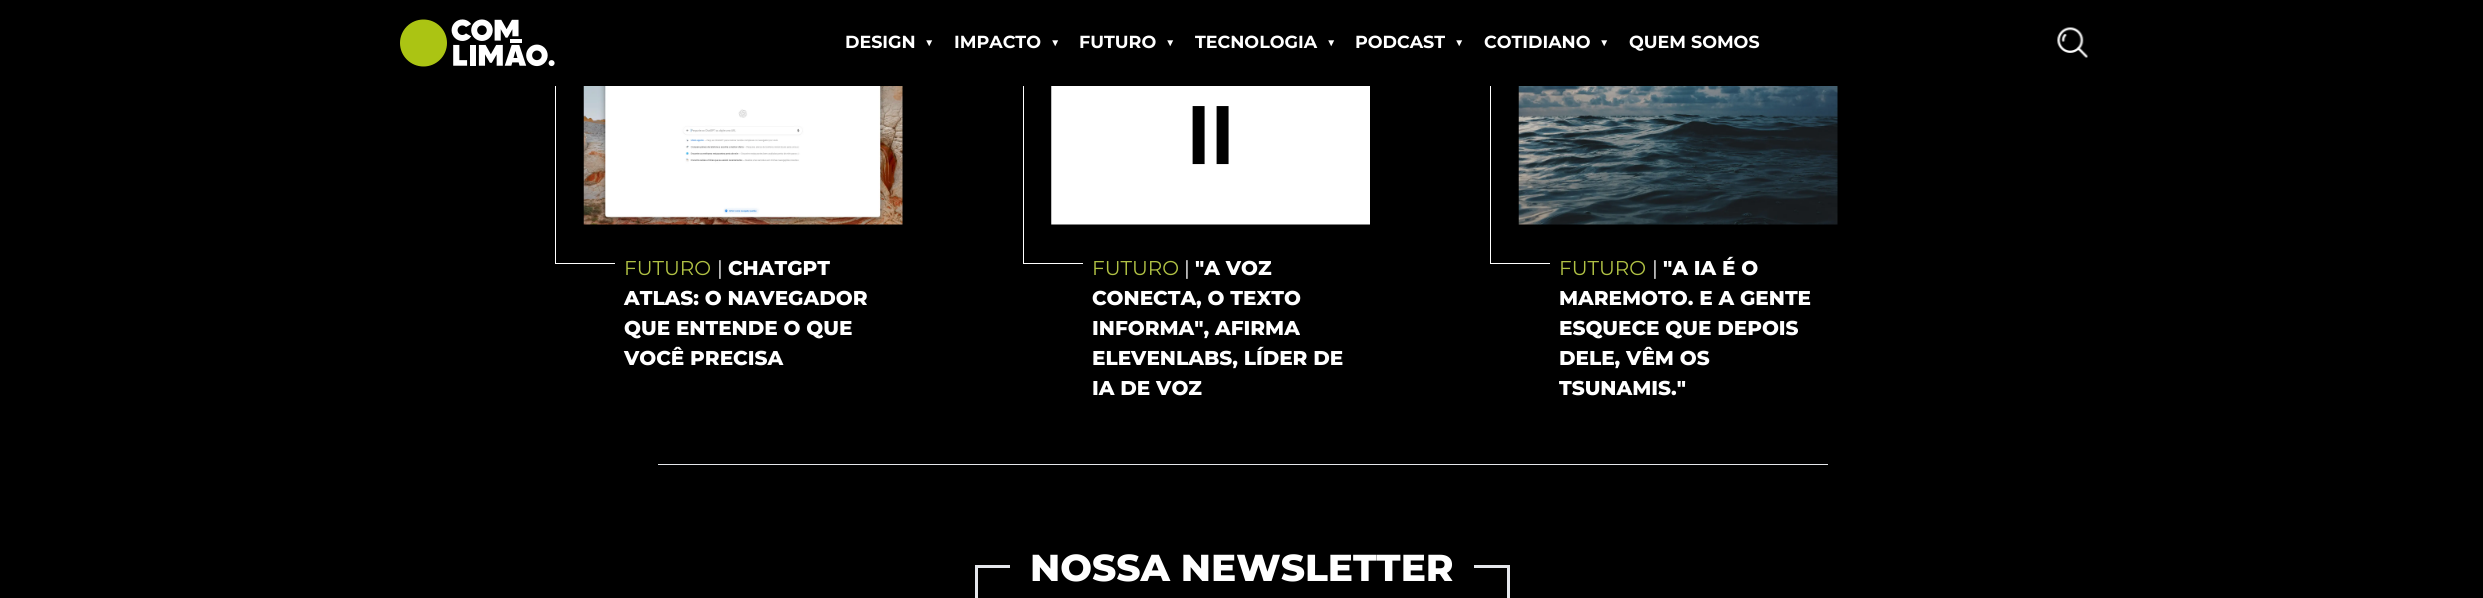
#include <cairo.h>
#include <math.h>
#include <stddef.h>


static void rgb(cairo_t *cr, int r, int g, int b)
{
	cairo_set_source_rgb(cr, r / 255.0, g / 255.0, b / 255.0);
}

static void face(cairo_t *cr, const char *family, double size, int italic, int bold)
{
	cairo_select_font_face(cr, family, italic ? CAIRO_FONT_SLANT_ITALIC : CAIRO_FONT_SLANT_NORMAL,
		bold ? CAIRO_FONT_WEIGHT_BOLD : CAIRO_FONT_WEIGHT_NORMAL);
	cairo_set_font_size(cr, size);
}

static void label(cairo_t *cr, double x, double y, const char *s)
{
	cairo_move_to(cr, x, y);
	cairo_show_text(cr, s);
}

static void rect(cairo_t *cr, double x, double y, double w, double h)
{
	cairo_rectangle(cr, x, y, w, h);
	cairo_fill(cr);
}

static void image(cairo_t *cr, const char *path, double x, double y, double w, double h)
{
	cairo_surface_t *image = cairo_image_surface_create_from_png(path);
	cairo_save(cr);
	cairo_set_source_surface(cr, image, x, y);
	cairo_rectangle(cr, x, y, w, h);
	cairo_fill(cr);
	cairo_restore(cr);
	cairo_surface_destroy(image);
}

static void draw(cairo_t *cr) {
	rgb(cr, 0, 0, 0);
	cairo_paint(cr);
	rgb(cr, 255, 255, 255);
	rect(cr, 555, 263, 60, 1);
	rect(cr, 555, 83, 1, 181);
	rect(cr, 1023, 263, 60, 1);
	rect(cr, 1023, 83, 1, 181);
	rect(cr, 1490, 263, 60, 1);
	rect(cr, 1490, 83, 1, 181);
	rgb(cr, 0, 0, 0);
	rect(cr, 555, 83, 936, 3);
	image(cr, "image0.png", 400, 19, 155, 48);
	face(cr, "Montserrat", 17.5, 0, 1);
	rgb(cr, 255, 255, 255);
	label(cr, 845, 48, "DESIGN");
	face(cr, "Montserrat", 14, 0, 1);
	label(cr, 925, 47, "▼");
	face(cr, "Montserrat", 17.5, 0, 1);
	label(cr, 954, 48, "IMPACTO");
	face(cr, "Montserrat", 14, 0, 1);
	label(cr, 1051, 47, "▼");
	face(cr, "Montserrat", 17.5, 0, 1);
	label(cr, 1079, 48, "FUTURO");
	face(cr, "Montserrat", 14, 0, 1);
	label(cr, 1166, 47, "▼");
	face(cr, "Montserrat", 17.5, 0, 1);
	label(cr, 1195, 48, "TECNOLOGIA");
	face(cr, "Montserrat", 14, 0, 1);
	label(cr, 1327, 47, "▼");
	face(cr, "Montserrat", 17.5, 0, 1);
	label(cr, 1355, 48, "PODCAST");
	face(cr, "Montserrat", 14, 0, 1);
	label(cr, 1455, 47, "▼");
	face(cr, "Montserrat", 17.5, 0, 1);
	label(cr, 1484, 48, "COTIDIANO");
	face(cr, "Montserrat", 14, 0, 1);
	label(cr, 1600, 47, "▼");
	face(cr, "Montserrat", 17.5, 0, 1);
	label(cr, 1629, 48, "QUEM SOMOS");
	image(cr, "image1.png", 2057, 27, 31, 31);
	image(cr, "image2.png", 583, 86, 320, 139);
	face(cr, "Montserrat", 20, 0, 0);
	rgb(cr, 176, 193, 68);
	label(cr, 624, 275, "FUTURO");
	rgb(cr, 255, 255, 255);
	label(cr, 717, 275, "|");
	face(cr, "Montserrat ExtraBold", 20, 0, 0);
	label(cr, 728, 275, "CHATGPT");
	label(cr, 624, 305, "ATLAS: O NAVEGADOR");
	label(cr, 624, 335, "QUE ENTENDE O QUE");
	label(cr, 624, 365, "VOCÊ PRECISA");
	image(cr, "image3.png", 1051, 86, 319, 139);
	face(cr, "Montserrat", 20, 0, 0);
	rgb(cr, 176, 193, 68);
	label(cr, 1092, 275, "FUTURO");
	rgb(cr, 255, 255, 255);
	label(cr, 1184, 275, "|");
	face(cr, "Montserrat ExtraBold", 20, 0, 0);
	label(cr, 1195, 275, "\"A VOZ");
	label(cr, 1092, 305, "CONECTA, O TEXTO");
	label(cr, 1092, 335, "INFORMA\", AFIRMA");
	label(cr, 1092, 365, "ELEVENLABS, LÍDER DE");
	label(cr, 1092, 395, "IA DE VOZ");
	image(cr, "image4.png", 1518, 86, 320, 139);
	face(cr, "Montserrat", 20, 0, 0);
	rgb(cr, 176, 193, 68);
	label(cr, 1559, 275, "FUTURO");
	rgb(cr, 255, 255, 255);
	label(cr, 1652, 275, "|");
	face(cr, "Montserrat ExtraBold", 20, 0, 0);
	label(cr, 1663, 275, "\"A IA É O");
	label(cr, 1559, 305, "MAREMOTO. E A GENTE");
	label(cr, 1559, 335, "ESQUECE QUE DEPOIS");
	label(cr, 1559, 365, "DELE, VÊM OS");
	label(cr, 1559, 395, "TSUNAMIS.\"");
	rgb(cr, 229, 231, 235);
	rect(cr, 658, 464, 1170, 1);
	cairo_rectangle(cr, 976.5, 566.5, 532, 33);
	cairo_set_line_width(cr, 3);
	cairo_stroke(cr);
	rgb(cr, 0, 0, 0);
	rect(cr, 1010, 565, 464, 3);
	face(cr, "Montserrat ExtraBold", 37.5, 0, 0);
	rgb(cr, 255, 255, 255);
	label(cr, 1030, 581, "NOSSA NEWSLETTER");
}

int main(void) {
	cairo_surface_t *surface = cairo_image_surface_create(CAIRO_FORMAT_RGB24, 2483, 598);
	cairo_t *cr = cairo_create(surface);
	cairo_font_options_t *options = cairo_font_options_create();
	cairo_font_options_set_hint_metrics(options, CAIRO_HINT_METRICS_OFF);
	cairo_font_options_set_hint_style(options, CAIRO_HINT_STYLE_NONE);
	cairo_set_font_options(cr, options);
	cairo_set_miter_limit(cr, 4);
	draw(cr);
	cairo_surface_write_to_png(surface, "render.png");
	cairo_font_options_destroy(options);
	cairo_destroy(cr);
	cairo_surface_destroy(surface);
	return 0;
}
